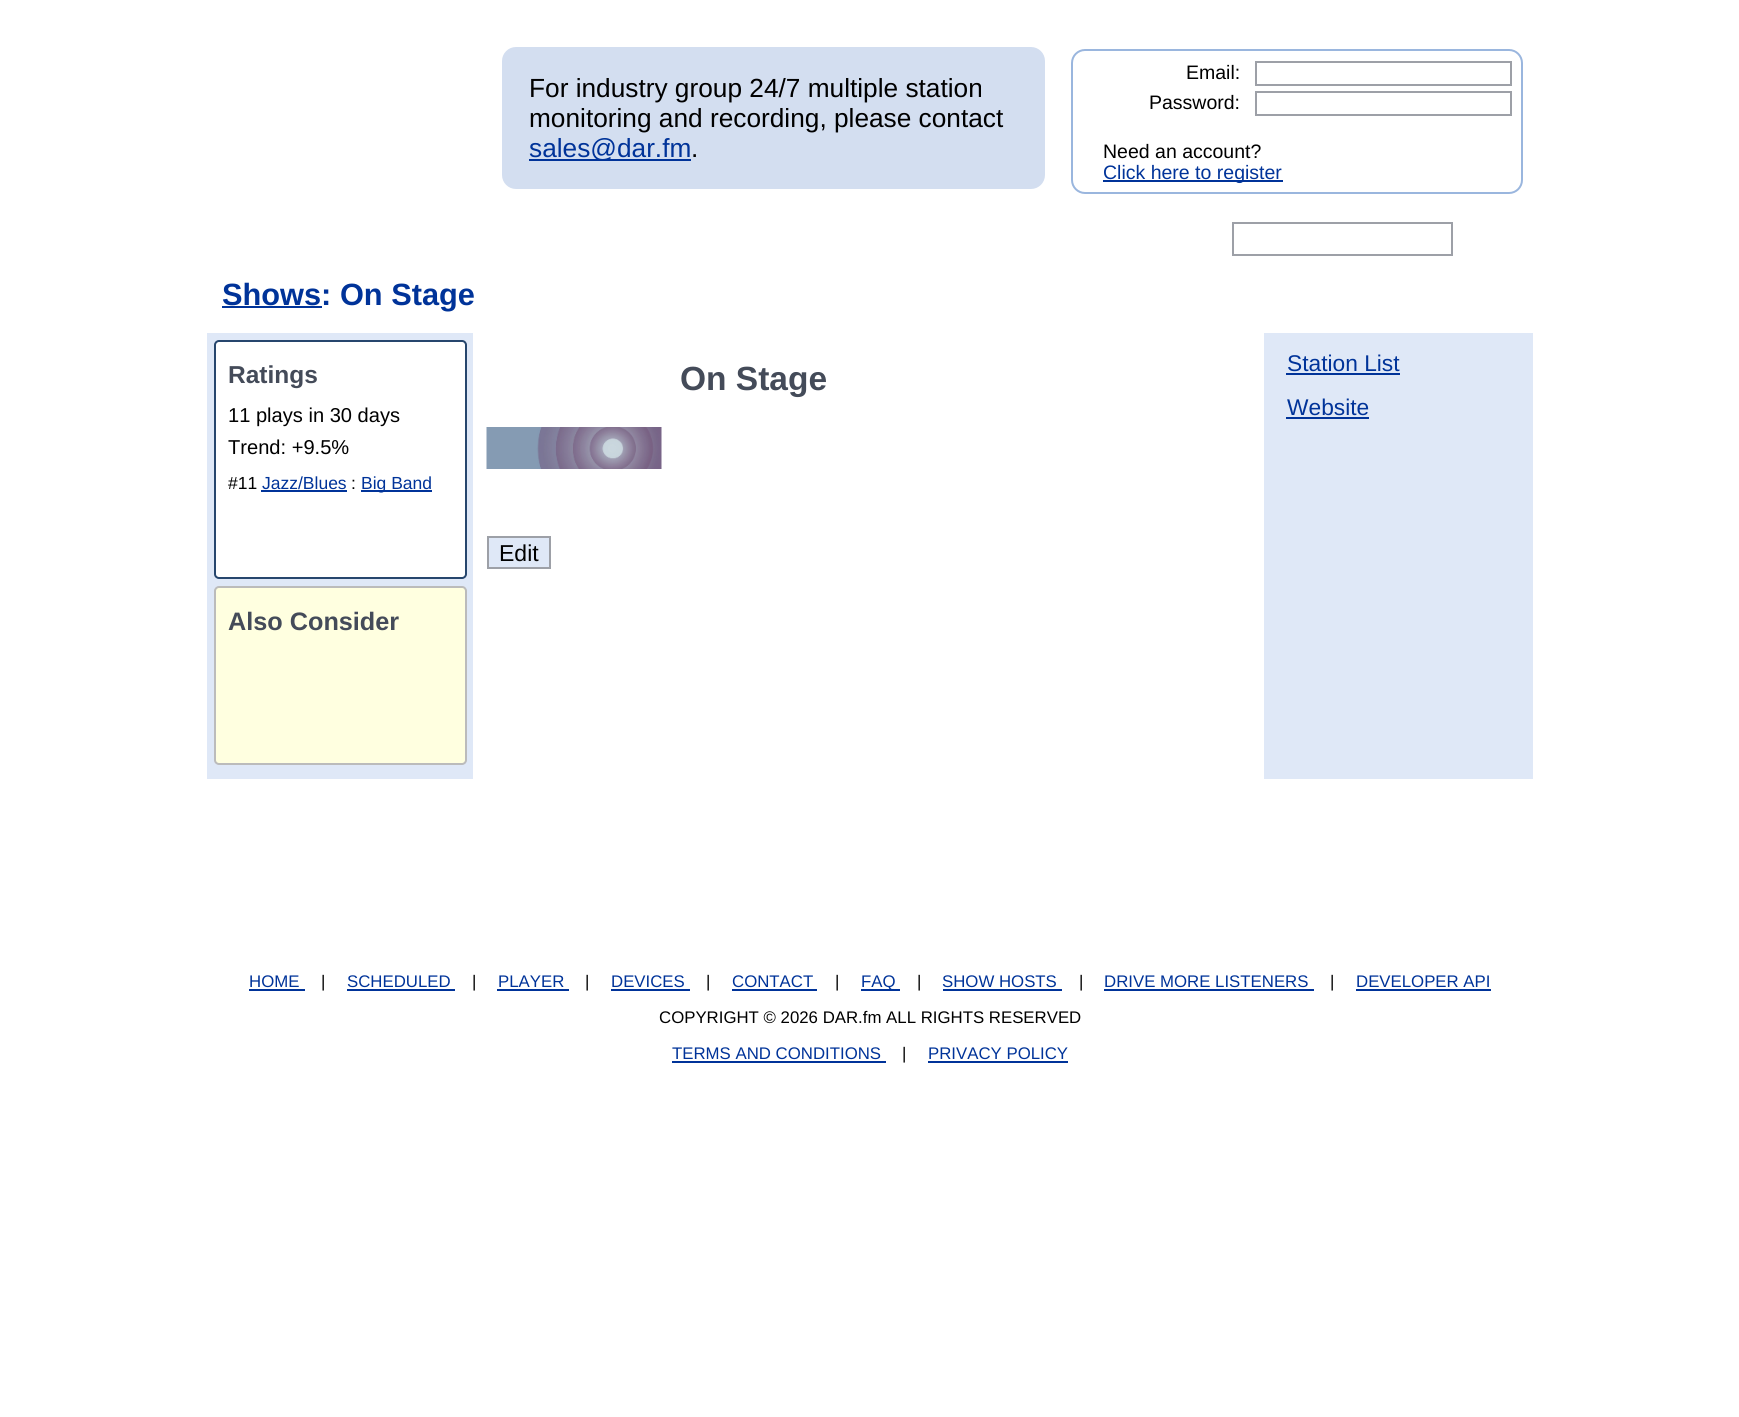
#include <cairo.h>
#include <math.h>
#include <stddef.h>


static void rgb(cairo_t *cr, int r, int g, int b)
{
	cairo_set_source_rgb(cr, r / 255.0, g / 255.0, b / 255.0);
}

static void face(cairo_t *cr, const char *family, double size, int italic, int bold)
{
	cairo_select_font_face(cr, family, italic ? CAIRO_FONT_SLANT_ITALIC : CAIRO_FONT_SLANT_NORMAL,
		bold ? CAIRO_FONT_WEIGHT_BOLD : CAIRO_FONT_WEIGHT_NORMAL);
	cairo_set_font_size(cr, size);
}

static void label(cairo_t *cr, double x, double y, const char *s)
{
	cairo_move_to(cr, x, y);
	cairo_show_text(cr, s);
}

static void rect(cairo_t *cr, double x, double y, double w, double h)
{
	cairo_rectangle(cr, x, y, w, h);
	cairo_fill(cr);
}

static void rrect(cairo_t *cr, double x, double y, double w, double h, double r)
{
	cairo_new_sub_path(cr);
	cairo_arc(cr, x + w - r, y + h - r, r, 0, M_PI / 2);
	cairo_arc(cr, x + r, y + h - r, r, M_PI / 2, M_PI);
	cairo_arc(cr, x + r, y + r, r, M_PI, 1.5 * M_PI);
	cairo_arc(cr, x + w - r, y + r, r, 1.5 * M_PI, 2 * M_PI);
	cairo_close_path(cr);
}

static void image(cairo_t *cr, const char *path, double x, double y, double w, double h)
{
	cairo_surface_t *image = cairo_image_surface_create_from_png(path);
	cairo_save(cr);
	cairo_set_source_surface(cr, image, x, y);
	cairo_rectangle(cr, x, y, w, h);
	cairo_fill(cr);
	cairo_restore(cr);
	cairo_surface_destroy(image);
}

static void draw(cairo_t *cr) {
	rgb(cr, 255, 255, 255);
	cairo_paint(cr);
	rgb(cr, 211, 222, 240);
	rrect(cr, 502, 47, 543, 142, 14);
	cairo_fill(cr);
	face(cr, "Liberation Sans", 26.25, 0, 0);
	rgb(cr, 0, 0, 0);
	label(cr, 529, 97, "For industry group 24/7 multiple station");
	label(cr, 529, 127, "monitoring and recording, please contact");
	rgb(cr, 0, 51, 153);
	rect(cr, 529, 159, 162, 2);
	label(cr, 529, 157, "sales@dar.fm");
	rgb(cr, 0, 0, 0);
	label(cr, 691, 157, ".");
	rrect(cr, 1072, 50, 450, 143, 13);
	rgb(cr, 154, 182, 222);
	cairo_stroke(cr);
	face(cr, "Liberation Sans", 19.5, 0, 0);
	rgb(cr, 0, 0, 0);
	label(cr, 1186, 79, "Email:");
	cairo_rectangle(cr, 1256, 62, 255, 23);
	rgb(cr, 157, 160, 167);
	cairo_stroke(cr);
	rgb(cr, 0, 0, 0);
	label(cr, 1149, 109, "Password:");
	cairo_rectangle(cr, 1256, 92, 255, 23);
	rgb(cr, 157, 160, 167);
	cairo_stroke(cr);
	rgb(cr, 0, 0, 0);
	label(cr, 1103, 158, "Need an account?");
	rgb(cr, 0, 51, 153);
	rect(cr, 1103, 180, 180, 2);
	label(cr, 1103, 179, "Click here to register");
	cairo_rectangle(cr, 1233, 223, 219, 32);
	rgb(cr, 157, 160, 167);
	cairo_stroke(cr);
	rgb(cr, 223, 232, 247);
	rect(cr, 207, 333, 1326, 446);
	rgb(cr, 0, 51, 153);
	rect(cr, 222, 306, 100, 2);
	face(cr, "Liberation Sans", 30.75, 0, 1);
	label(cr, 222, 305, "Shows: On Stage");
	rgb(cr, 255, 255, 255);
	rrect(cr, 215, 341, 251, 237, 4);
	cairo_fill_preserve(cr);
	rgb(cr, 38, 70, 109);
	cairo_stroke(cr);
	face(cr, "Liberation Sans", 24.5, 0, 1);
	rgb(cr, 68, 75, 89);
	label(cr, 228, 383, "Ratings");
	face(cr, "Liberation Sans", 20.1, 0, 0);
	rgb(cr, 0, 0, 0);
	label(cr, 228, 422, "11 plays in 30 days");
	label(cr, 228, 454, "Trend: +9.5%");
	face(cr, "Liberation Sans", 17.5, 0, 0);
	label(cr, 228, 489, "#11");
	rgb(cr, 0, 51, 153);
	label(cr, 262, 489, "Jazz/Blues");
	rect(cr, 261, 490, 86, 2);
	rgb(cr, 0, 0, 0);
	label(cr, 351, 489, ":");
	rgb(cr, 0, 51, 153);
	rect(cr, 361, 490, 71, 2);
	label(cr, 361, 489, "Big Band");
	rgb(cr, 255, 255, 224);
	rrect(cr, 215, 587, 251, 177, 4);
	cairo_fill_preserve(cr);
	rgb(cr, 187, 187, 187);
	cairo_stroke(cr);
	face(cr, "Liberation Sans", 25.25, 0, 1);
	rgb(cr, 68, 75, 89);
	label(cr, 228, 630, "Also Consider");
	rgb(cr, 255, 255, 255);
	rect(cr, 473, 333, 791, 446);
	face(cr, "Liberation Sans", 33.5, 0, 1);
	rgb(cr, 68, 75, 89);
	label(cr, 680, 390, "On Stage");
	image(cr, "image0.png", 486, 427, 176, 42);
	rgb(cr, 223, 232, 247);
	cairo_rectangle(cr, 488, 537, 62, 31);
	cairo_fill_preserve(cr);
	rgb(cr, 157, 160, 167);
	cairo_stroke(cr);
	face(cr, "Liberation Sans", 23, 0, 0);
	rgb(cr, 0, 0, 0);
	label(cr, 499, 561, "Edit");
	face(cr, "Liberation Sans", 22.75, 0, 0);
	rgb(cr, 0, 51, 153);
	label(cr, 1287, 371, "Station List");
	rect(cr, 1286, 373, 114, 2);
	label(cr, 1287, 415, "Website");
	rect(cr, 1286, 417, 83, 2);
	face(cr, "Liberation Sans", 16.8, 0, 0);
	label(cr, 249, 987, "HOME");
	rect(cr, 249, 989, 56, 2);
	rgb(cr, 0, 0, 0);
	label(cr, 321, 987, "|");
	rgb(cr, 0, 51, 153);
	label(cr, 347, 987, "SCHEDULED");
	rect(cr, 347, 989, 108, 2);
	rgb(cr, 0, 0, 0);
	label(cr, 472, 987, "|");
	rgb(cr, 0, 51, 153);
	label(cr, 498, 987, "PLAYER");
	rect(cr, 497, 989, 72, 2);
	rgb(cr, 0, 0, 0);
	label(cr, 585, 987, "|");
	rgb(cr, 0, 51, 153);
	label(cr, 611, 987, "DEVICES");
	rect(cr, 611, 989, 79, 2);
	rgb(cr, 0, 0, 0);
	label(cr, 706, 987, "|");
	rgb(cr, 0, 51, 153);
	label(cr, 732, 987, "CONTACT");
	rect(cr, 732, 989, 85, 2);
	rgb(cr, 0, 0, 0);
	label(cr, 835, 987, "|");
	rgb(cr, 0, 51, 153);
	rect(cr, 861, 989, 39, 2);
	label(cr, 861, 987, "FAQ");
	rgb(cr, 0, 0, 0);
	label(cr, 917, 987, "|");
	rgb(cr, 0, 51, 153);
	label(cr, 942, 987, "SHOW HOSTS");
	rect(cr, 943, 989, 119, 2);
	rgb(cr, 0, 0, 0);
	label(cr, 1079, 987, "|");
	rgb(cr, 0, 51, 153);
	label(cr, 1104, 987, "DRIVE MORE LISTENERS");
	rect(cr, 1104, 989, 210, 2);
	rgb(cr, 0, 0, 0);
	label(cr, 1330, 987, "|");
	rgb(cr, 0, 51, 153);
	label(cr, 1356, 987, "DEVELOPER API");
	rect(cr, 1356, 989, 135, 2);
	rgb(cr, 0, 0, 0);
	label(cr, 659, 1023, "COPYRIGHT © 2026 DAR.fm ALL RIGHTS RESERVED");
	rgb(cr, 0, 51, 153);
	label(cr, 672, 1059, "TERMS AND CONDITIONS");
	rect(cr, 672, 1061, 214, 2);
	rgb(cr, 0, 0, 0);
	label(cr, 902, 1059, "|");
	rgb(cr, 0, 51, 153);
	label(cr, 928, 1059, "PRIVACY POLICY");
	rect(cr, 928, 1061, 140, 2);
}

int main(void) {
	cairo_surface_t *surface = cairo_image_surface_create(CAIRO_FORMAT_RGB24, 1739, 1417);
	cairo_t *cr = cairo_create(surface);
	cairo_font_options_t *options = cairo_font_options_create();
	cairo_font_options_set_hint_metrics(options, CAIRO_HINT_METRICS_OFF);
	cairo_font_options_set_hint_style(options, CAIRO_HINT_STYLE_NONE);
	cairo_set_font_options(cr, options);
	cairo_set_miter_limit(cr, 4);
	draw(cr);
	cairo_surface_write_to_png(surface, "render.png");
	cairo_font_options_destroy(options);
	cairo_destroy(cr);
	cairo_surface_destroy(surface);
	return 0;
}
